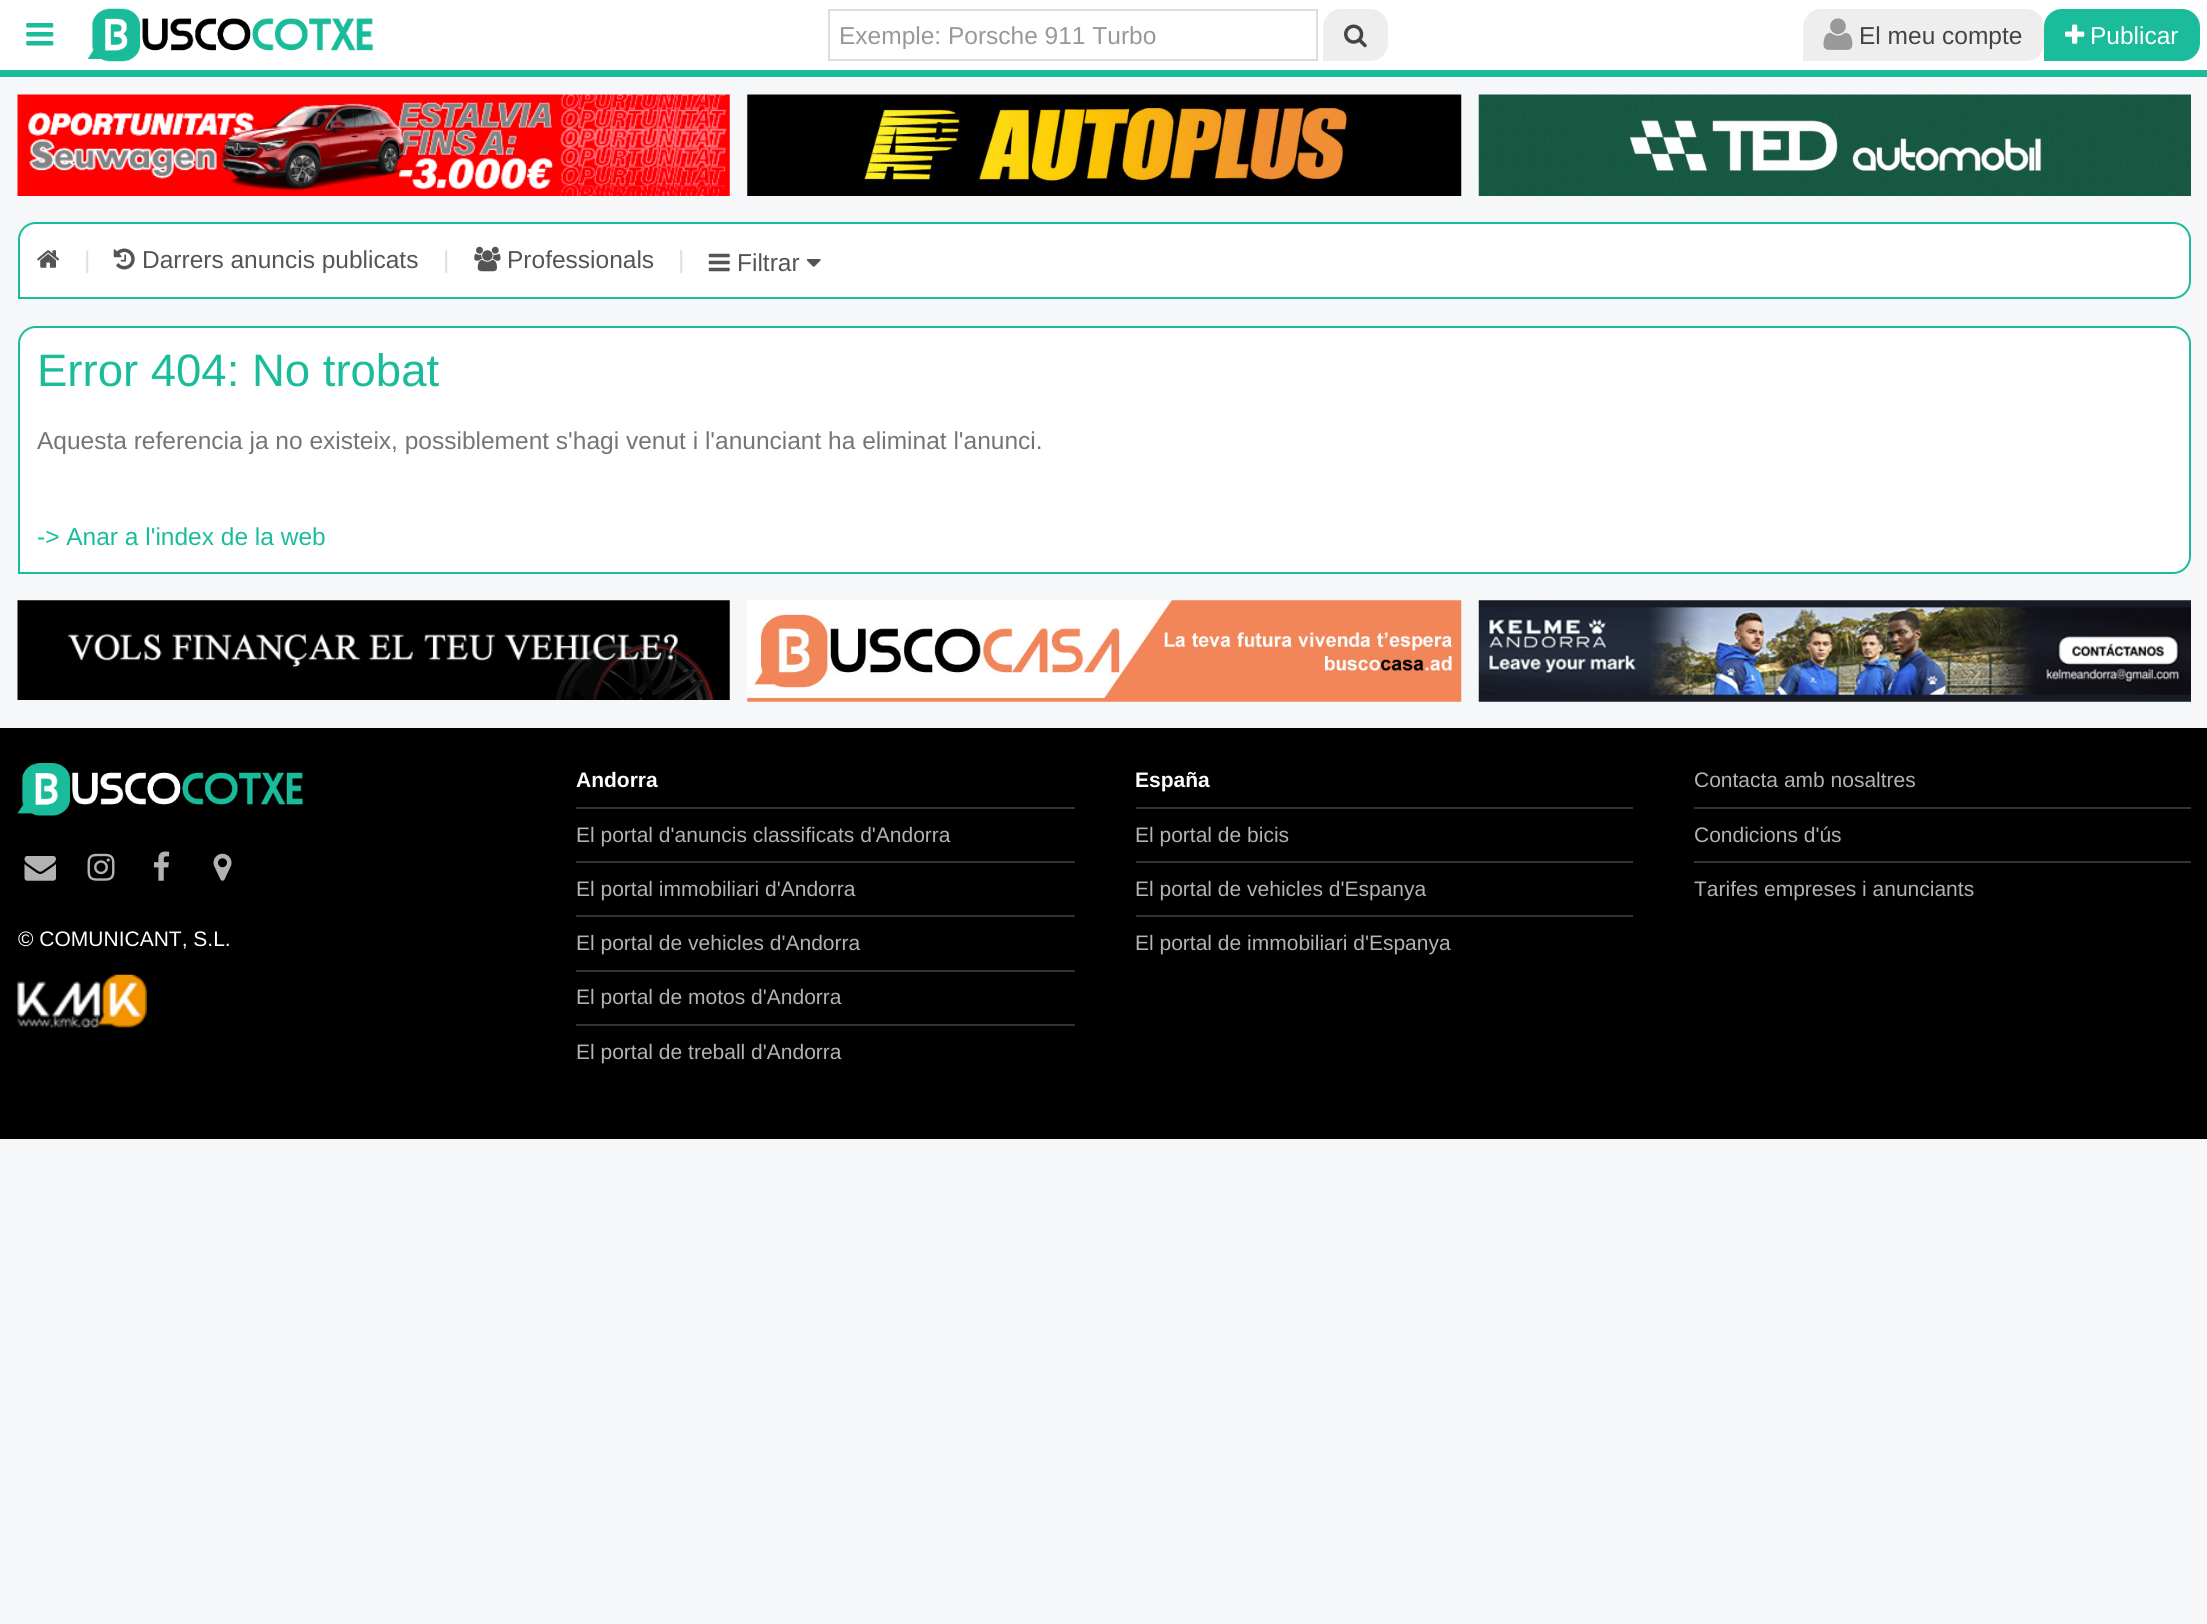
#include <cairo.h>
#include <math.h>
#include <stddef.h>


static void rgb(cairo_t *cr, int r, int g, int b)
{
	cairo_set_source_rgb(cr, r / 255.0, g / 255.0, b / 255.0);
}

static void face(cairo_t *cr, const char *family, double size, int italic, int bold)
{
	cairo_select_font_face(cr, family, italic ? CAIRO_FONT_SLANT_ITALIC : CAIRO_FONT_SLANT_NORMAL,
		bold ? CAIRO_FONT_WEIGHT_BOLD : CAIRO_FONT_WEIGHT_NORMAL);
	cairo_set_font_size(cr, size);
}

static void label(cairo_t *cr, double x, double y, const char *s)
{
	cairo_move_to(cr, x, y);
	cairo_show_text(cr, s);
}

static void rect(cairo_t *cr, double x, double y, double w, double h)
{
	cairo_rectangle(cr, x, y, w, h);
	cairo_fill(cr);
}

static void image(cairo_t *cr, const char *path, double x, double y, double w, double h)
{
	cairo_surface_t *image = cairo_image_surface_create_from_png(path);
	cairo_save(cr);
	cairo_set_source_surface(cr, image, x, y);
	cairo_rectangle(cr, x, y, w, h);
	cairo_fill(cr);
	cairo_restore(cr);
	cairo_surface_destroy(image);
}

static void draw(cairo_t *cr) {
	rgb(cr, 246, 247, 248);
	cairo_paint(cr);
	rgb(cr, 26, 188, 156);
	rect(cr, 0, 70, 2207, 7);
	rgb(cr, 255, 255, 255);
	rect(cr, 0, 0, 2207, 70);
	image(cr, "image0.png", 26, 23, 28, 23);
	image(cr, "image1.png", 87, 8, 286, 54);
	cairo_rectangle(cr, 829, 10, 488, 50);
	rgb(cr, 221, 221, 221);
	cairo_stroke(cr);
	face(cr, "Liberation Sans", 24.5, 0, 0);
	rgb(cr, 153, 153, 153);
	label(cr, 839, 44, "Exemple: Porsche 911 Turbo");
	rgb(cr, 238, 238, 238);
	cairo_new_path(cr);
	cairo_move_to(cr, 1341, 9);
	cairo_line_to(cr, 1370, 9);
	cairo_curve_to(cr, 1380, 9, 1388, 17, 1388, 27);
	cairo_line_to(cr, 1388, 43);
	cairo_curve_to(cr, 1388, 53, 1380, 61, 1370, 61);
	cairo_line_to(cr, 1323, 61);
	cairo_line_to(cr, 1323, 27);
	cairo_curve_to(cr, 1323, 17, 1331, 9, 1341, 9);
	cairo_close_path(cr);
	cairo_fill(cr);
	image(cr, "image2.png", 1344, 24, 23, 24);
	cairo_new_path(cr);
	cairo_move_to(cr, 1821, 9);
	cairo_line_to(cr, 2026, 9);
	cairo_curve_to(cr, 2036, 9, 2044, 17, 2044, 27);
	cairo_line_to(cr, 2044, 43);
	cairo_curve_to(cr, 2044, 53, 2036, 61, 2026, 61);
	cairo_line_to(cr, 1803, 61);
	cairo_line_to(cr, 1803, 27);
	cairo_curve_to(cr, 1803, 17, 1811, 9, 1821, 9);
	cairo_close_path(cr);
	cairo_fill(cr);
	image(cr, "image3.png", 1823, 18, 30, 32);
	rgb(cr, 68, 68, 68);
	label(cr, 1859, 44, "El meu compte");
	rgb(cr, 26, 188, 156);
	cairo_new_path(cr);
	cairo_move_to(cr, 2062, 9);
	cairo_line_to(cr, 2182, 9);
	cairo_curve_to(cr, 2192, 9, 2200, 17, 2200, 27);
	cairo_line_to(cr, 2200, 43);
	cairo_curve_to(cr, 2200, 53, 2192, 61, 2182, 61);
	cairo_line_to(cr, 2044, 61);
	cairo_line_to(cr, 2044, 27);
	cairo_curve_to(cr, 2044, 17, 2052, 9, 2062, 9);
	cairo_close_path(cr);
	cairo_fill(cr);
	image(cr, "image4.png", 2065, 24, 20, 20);
	rgb(cr, 255, 255, 255);
	label(cr, 2090, 44, "Publicar");
	image(cr, "image5.png", 17, 94, 713, 102);
	image(cr, "image6.png", 747, 94, 715, 102);
	image(cr, "image7.png", 1478, 94, 713, 102);
	cairo_new_path(cr);
	cairo_move_to(cr, 36, 223);
	cairo_line_to(cr, 2173, 223);
	cairo_curve_to(cr, 2182.5, 223, 2190, 230.5, 2190, 240);
	cairo_line_to(cr, 2190, 281);
	cairo_curve_to(cr, 2190, 290.5, 2182.5, 298, 2173, 298);
	cairo_line_to(cr, 19, 298);
	cairo_line_to(cr, 19, 240);
	cairo_curve_to(cr, 19, 230.5, 26.5, 223, 36, 223);
	cairo_close_path(cr);
	cairo_fill_preserve(cr);
	rgb(cr, 26, 188, 156);
	cairo_stroke(cr);
	image(cr, "image8.png", 37, 250, 23, 18);
	rgb(cr, 223, 223, 223);
	label(cr, 84, 268, "|");
	image(cr, "image9.png", 113, 248, 22, 22);
	rgb(cr, 84, 84, 84);
	label(cr, 142, 268, "Darrers anuncis publicats");
	rgb(cr, 223, 223, 223);
	label(cr, 443, 268, "|");
	image(cr, "image10.png", 474, 246, 27, 26);
	rgb(cr, 84, 84, 84);
	label(cr, 507, 268, "Professionals");
	rgb(cr, 223, 223, 223);
	label(cr, 678, 268, "|");
	image(cr, "image11.png", 708, 253, 22, 19);
	rgb(cr, 84, 84, 84);
	label(cr, 737, 271, "Filtrar");
	image(cr, "image12.png", 806, 259, 15, 8);
	rgb(cr, 255, 255, 255);
	cairo_new_path(cr);
	cairo_move_to(cr, 36, 327);
	cairo_line_to(cr, 2173, 327);
	cairo_curve_to(cr, 2182.5, 327, 2190, 334.5, 2190, 344);
	cairo_line_to(cr, 2190, 556);
	cairo_curve_to(cr, 2190, 565.5, 2182.5, 573, 2173, 573);
	cairo_line_to(cr, 19, 573);
	cairo_line_to(cr, 19, 344);
	cairo_curve_to(cr, 19, 334.5, 26.5, 327, 36, 327);
	cairo_close_path(cr);
	cairo_fill_preserve(cr);
	rgb(cr, 26, 188, 156);
	cairo_stroke(cr);
	face(cr, "Liberation Sans", 45.5, 0, 0);
	label(cr, 37, 386, "Error 404: No trobat");
	face(cr, "Liberation Sans", 24.5, 0, 0);
	rgb(cr, 117, 117, 117);
	label(cr, 37, 449, "Aquesta referencia ja no existeix, possiblement s'hagi venut i l'anunciant ha eliminat l'anunci.");
	rgb(cr, 26, 188, 156);
	label(cr, 37, 545, "-> Anar a l'index de la web");
	image(cr, "image13.png", 17, 600, 713, 100);
	image(cr, "image14.png", 747, 600, 715, 102);
	image(cr, "image15.png", 1478, 600, 713, 102);
	rgb(cr, 0, 0, 0);
	rect(cr, 0, 728, 2207, 411);
	face(cr, "Liberation Sans", 21, 0, 1);
	rgb(cr, 255, 255, 255);
	label(cr, 576, 787, "Andorra");
	rgb(cr, 51, 51, 51);
	rect(cr, 576, 807, 499, 2);
	face(cr, "Liberation Sans", 21, 0, 0);
	rgb(cr, 179, 179, 179);
	label(cr, 576, 842, "El portal d'anuncis classificats d'Andorra");
	rgb(cr, 51, 51, 51);
	rect(cr, 576, 861, 499, 2);
	rgb(cr, 179, 179, 179);
	label(cr, 576, 896, "El portal immobiliari d'Andorra");
	rgb(cr, 51, 51, 51);
	rect(cr, 576, 915, 499, 2);
	rgb(cr, 179, 179, 179);
	label(cr, 576, 950, "El portal de vehicles d'Andorra");
	rgb(cr, 51, 51, 51);
	rect(cr, 576, 970, 499, 2);
	rgb(cr, 179, 179, 179);
	label(cr, 576, 1004, "El portal de motos d'Andorra");
	rgb(cr, 51, 51, 51);
	rect(cr, 576, 1024, 499, 2);
	rgb(cr, 179, 179, 179);
	label(cr, 576, 1059, "El portal de treball d'Andorra");
	face(cr, "Liberation Sans", 21, 0, 1);
	rgb(cr, 255, 255, 255);
	label(cr, 1135, 787, "España");
	rgb(cr, 51, 51, 51);
	rect(cr, 1136, 807, 497, 2);
	face(cr, "Liberation Sans", 21, 0, 0);
	rgb(cr, 179, 179, 179);
	label(cr, 1135, 842, "El portal de bicis");
	rgb(cr, 51, 51, 51);
	rect(cr, 1136, 861, 497, 2);
	rgb(cr, 179, 179, 179);
	label(cr, 1135, 896, "El portal de vehicles d'Espanya");
	rgb(cr, 51, 51, 51);
	rect(cr, 1136, 915, 497, 2);
	rgb(cr, 179, 179, 179);
	label(cr, 1135, 950, "El portal de immobiliari d'Espanya");
	label(cr, 1694, 787, "Contacta amb nosaltres");
	rgb(cr, 51, 51, 51);
	rect(cr, 1694, 807, 497, 2);
	rgb(cr, 179, 179, 179);
	label(cr, 1694, 842, "Condicions d'ús");
	rgb(cr, 51, 51, 51);
	rect(cr, 1694, 861, 497, 2);
	rgb(cr, 179, 179, 179);
	label(cr, 1694, 896, "Tarifes empreses i anunciants");
	image(cr, "image16.png", 17, 763, 286, 53);
	image(cr, "image17.png", 24, 856, 32, 25);
	image(cr, "image18.png", 87, 853, 28, 28);
	image(cr, "image19.png", 153, 851, 17, 30);
	image(cr, "image20.png", 213, 853, 19, 28);
	rgb(cr, 255, 255, 255);
	label(cr, 18, 946, "© COMUNICANT, S.L.");
	image(cr, "image21.png", 17, 974, 130, 54);
}

int main(void) {
	cairo_surface_t *surface = cairo_image_surface_create(CAIRO_FORMAT_RGB24, 2207, 1624);
	cairo_t *cr = cairo_create(surface);
	cairo_font_options_t *options = cairo_font_options_create();
	cairo_font_options_set_hint_metrics(options, CAIRO_HINT_METRICS_OFF);
	cairo_font_options_set_hint_style(options, CAIRO_HINT_STYLE_NONE);
	cairo_set_font_options(cr, options);
	cairo_set_miter_limit(cr, 4);
	draw(cr);
	cairo_surface_write_to_png(surface, "render.png");
	cairo_font_options_destroy(options);
	cairo_destroy(cr);
	cairo_surface_destroy(surface);
	return 0;
}
